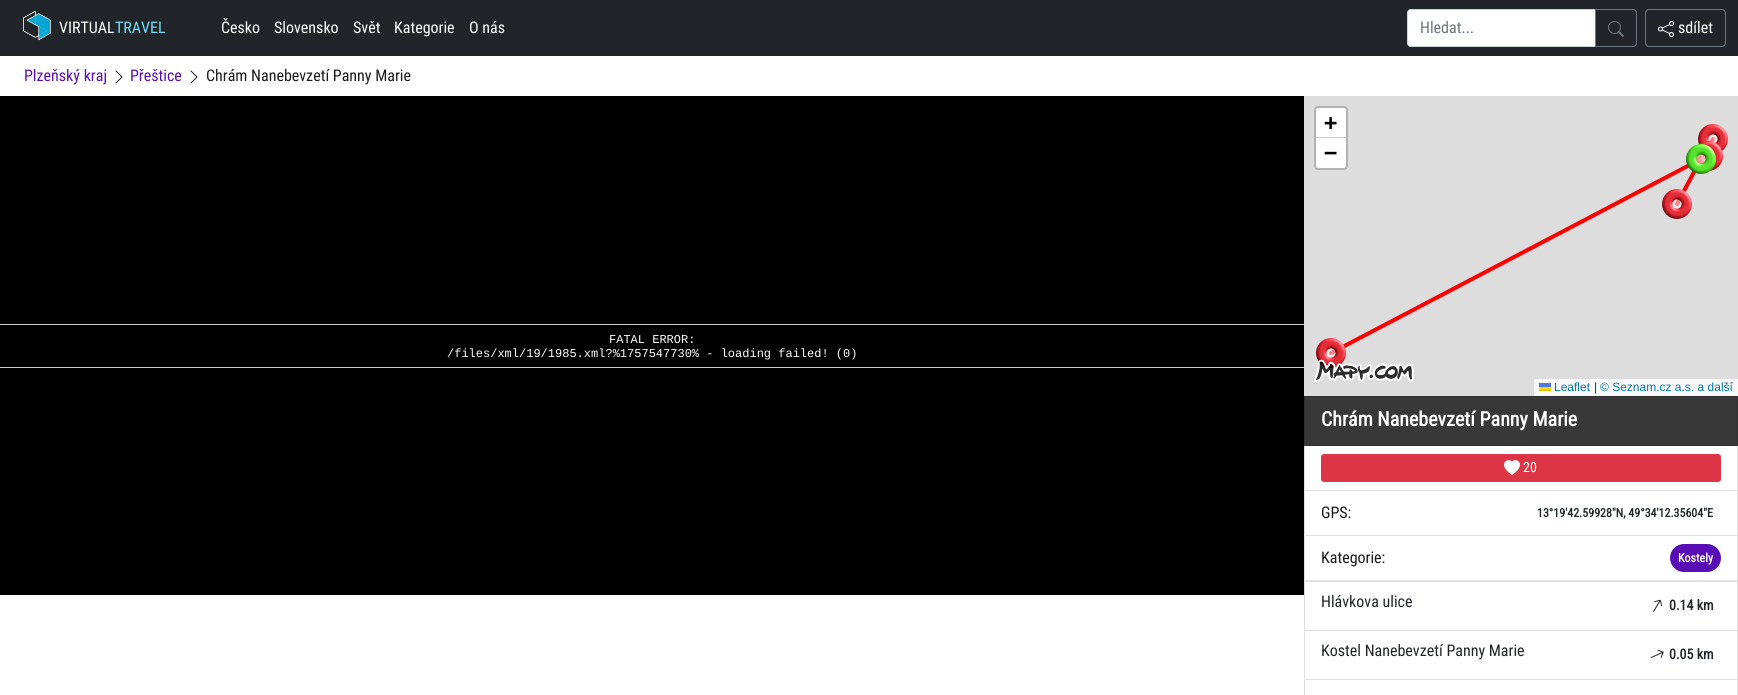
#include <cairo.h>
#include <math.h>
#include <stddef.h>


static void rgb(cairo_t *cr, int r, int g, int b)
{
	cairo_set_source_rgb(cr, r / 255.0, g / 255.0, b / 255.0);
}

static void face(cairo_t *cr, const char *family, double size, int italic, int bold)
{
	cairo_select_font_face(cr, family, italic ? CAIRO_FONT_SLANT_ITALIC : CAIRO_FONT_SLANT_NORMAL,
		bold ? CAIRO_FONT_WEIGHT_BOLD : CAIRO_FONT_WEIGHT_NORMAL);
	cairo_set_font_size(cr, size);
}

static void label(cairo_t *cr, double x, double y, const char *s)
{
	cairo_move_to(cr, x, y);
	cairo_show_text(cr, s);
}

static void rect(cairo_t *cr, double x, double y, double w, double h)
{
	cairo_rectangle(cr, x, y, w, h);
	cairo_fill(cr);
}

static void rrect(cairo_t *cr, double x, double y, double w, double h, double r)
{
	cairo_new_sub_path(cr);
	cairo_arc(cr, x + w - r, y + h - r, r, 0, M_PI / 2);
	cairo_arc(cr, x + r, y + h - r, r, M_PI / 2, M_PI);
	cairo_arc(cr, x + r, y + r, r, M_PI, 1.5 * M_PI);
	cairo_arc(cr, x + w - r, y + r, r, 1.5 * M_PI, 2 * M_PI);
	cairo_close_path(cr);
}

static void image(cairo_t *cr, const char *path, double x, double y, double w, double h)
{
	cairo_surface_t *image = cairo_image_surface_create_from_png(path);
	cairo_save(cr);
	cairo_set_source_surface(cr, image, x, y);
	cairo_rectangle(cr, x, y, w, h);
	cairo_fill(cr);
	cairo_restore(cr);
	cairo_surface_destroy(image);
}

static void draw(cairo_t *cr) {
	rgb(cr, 255, 255, 255);
	cairo_paint(cr);
	rgb(cr, 33, 37, 41);
	rect(cr, 0, 0, 1738, 56);
	image(cr, "image0.png", 23, 10, 28, 31);
	face(cr, "Roboto Condensed", 16, 0, 0);
	rgb(cr, 255, 255, 255);
	label(cr, 59, 33, "VIRTUAL");
	rgb(cr, 114, 221, 247);
	label(cr, 115, 33, "TRAVEL");
	rgb(cr, 255, 255, 255);
	label(cr, 221, 33, "Česko");
	label(cr, 274, 33, "Slovensko");
	label(cr, 353, 33, "Svět");
	label(cr, 394, 33, "Kategorie");
	label(cr, 469, 33, "O nás");
	cairo_new_path(cr);
	cairo_move_to(cr, 1411, 9.5);
	cairo_line_to(cr, 1595.5, 9.5);
	cairo_line_to(cr, 1595.5, 46.5);
	cairo_line_to(cr, 1411, 46.5);
	cairo_curve_to(cr, 1409, 46.5, 1407.5, 45, 1407.5, 43);
	cairo_line_to(cr, 1407.5, 13);
	cairo_curve_to(cr, 1407.5, 11, 1409, 9.5, 1411, 9.5);
	cairo_close_path(cr);
	cairo_fill_preserve(cr);
	rgb(cr, 206, 212, 218);
	cairo_set_line_width(cr, 1);
	cairo_stroke(cr);
	rgb(cr, 108, 117, 125);
	label(cr, 1420, 33, "Hledat...");
	cairo_new_path(cr);
	cairo_move_to(cr, 1595.5, 9.5);
	cairo_line_to(cr, 1633, 9.5);
	cairo_curve_to(cr, 1635, 9.5, 1636.5, 11, 1636.5, 13);
	cairo_line_to(cr, 1636.5, 43);
	cairo_curve_to(cr, 1636.5, 45, 1635, 46.5, 1633, 46.5);
	cairo_line_to(cr, 1595.5, 46.5);
	cairo_close_path(cr);
	cairo_stroke(cr);
	image(cr, "image1.png", 1608, 21, 16, 16);
	rrect(cr, 1645.5, 9.5, 80, 37, 3.5);
	cairo_stroke(cr);
	image(cr, "image2.png", 1658, 21, 16, 16);
	rgb(cr, 255, 255, 255);
	label(cr, 1678, 33, "sdílet");
	rgb(cr, 89, 14, 181);
	label(cr, 24, 81, "Plzeňský kraj");
	image(cr, "image3.png", 115, 70, 8, 14);
	label(cr, 130, 81, "Přeštice");
	image(cr, "image3.png", 190, 70, 8, 14);
	rgb(cr, 26, 26, 26);
	label(cr, 206, 81, "Chrám Nanebevzetí Panny Marie");
	rgb(cr, 0, 0, 0);
	rect(cr, 0, 96, 1304, 499);
	rgb(cr, 221, 221, 221);
	rect(cr, 1304, 96, 434, 300);
	cairo_new_path(cr);
	cairo_move_to(cr, 1701, 159);
	cairo_line_to(cr, 1713, 139);
	cairo_move_to(cr, 1701, 159);
	cairo_line_to(cr, 1708, 156);
	rgb(cr, 255, 0, 0);
	cairo_set_line_width(cr, 4);
	cairo_set_line_cap(cr, CAIRO_LINE_CAP_ROUND);
	cairo_set_line_join(cr, CAIRO_LINE_JOIN_ROUND);
	cairo_stroke(cr);
	cairo_new_path(cr);
	cairo_move_to(cr, 1701, 159);
	cairo_line_to(cr, 1677, 204);
	cairo_stroke(cr);
	cairo_new_path(cr);
	cairo_move_to(cr, 1701, 159);
	cairo_line_to(cr, 1331, 353);
	cairo_stroke(cr);
	image(cr, "image9.png", 1316, 338, 30, 30);
	image(cr, "image4.png", 1314, 359, 100, 23);
	cairo_save(cr);
	cairo_rectangle(cr, 0, 96, 1304, 499);
	cairo_clip(cr);
	cairo_rectangle(cr, -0.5, 324.5, 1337, 43);
	rgb(cr, 204, 204, 204);
	cairo_set_line_width(cr, 1);
	cairo_set_line_cap(cr, CAIRO_LINE_CAP_BUTT);
	cairo_set_line_join(cr, CAIRO_LINE_JOIN_MITER);
	cairo_stroke(cr);
	cairo_restore(cr);
	face(cr, "Liberation Mono", 12, 0, 0);
	rgb(cr, 255, 255, 255);
	label(cr, 609, 343, "FATAL ERROR:");
	label(cr, 447, 357, "/files/xml/19/1985.xml?%1757547730% - loading failed! (0)");
	rrect(cr, 1315, 107, 32, 62, 3);
	rgb(cr, 177, 177, 177);
	cairo_set_line_width(cr, 2);
	cairo_set_line_cap(cr, CAIRO_LINE_CAP_BUTT);
	cairo_set_line_join(cr, CAIRO_LINE_JOIN_MITER);
	cairo_stroke(cr);
	rgb(cr, 255, 255, 255);
	cairo_new_path(cr);
	cairo_move_to(cr, 1318, 108);
	cairo_line_to(cr, 1344, 108);
	cairo_curve_to(cr, 1345, 108, 1346, 109, 1346, 110);
	cairo_line_to(cr, 1346, 138);
	cairo_line_to(cr, 1316, 138);
	cairo_line_to(cr, 1316, 110);
	cairo_curve_to(cr, 1316, 109, 1317, 108, 1318, 108);
	cairo_close_path(cr);
	cairo_fill(cr);
	rgb(cr, 204, 204, 204);
	rect(cr, 1316, 137, 30, 1);
	face(cr, "DejaVu Sans Mono", 22, 0, 1);
	rgb(cr, 0, 0, 0);
	label(cr, 1324, 130, "+");
	rgb(cr, 255, 255, 255);
	cairo_new_path(cr);
	cairo_move_to(cr, 1316, 138);
	cairo_line_to(cr, 1346, 138);
	cairo_line_to(cr, 1346, 166);
	cairo_curve_to(cr, 1346, 167, 1345, 168, 1344, 168);
	cairo_line_to(cr, 1318, 168);
	cairo_curve_to(cr, 1317, 168, 1316, 167, 1316, 166);
	cairo_close_path(cr);
	cairo_fill(cr);
	rgb(cr, 0, 0, 0);
	label(cr, 1324, 160, "−");
	rgb(cr, 248, 248, 248);
	rect(cr, 1534, 379, 204, 17);
	face(cr, "Liberation Sans", 12, 0, 0);
	rgb(cr, 0, 120, 168);
	label(cr, 1554, 391, "Leaflet");
	rgb(cr, 76, 123, 225);
	rect(cr, 1539, 383, 12, 4);
	rgb(cr, 255, 213, 0);
	rect(cr, 1539, 387, 12, 3);
	rgb(cr, 224, 188, 0);
	rect(cr, 1539, 390, 12, 1);
	rgb(cr, 51, 51, 51);
	label(cr, 1594, 391, "|");
	rgb(cr, 0, 120, 168);
	label(cr, 1600, 391, "© Seznam.cz a.s. a další");
	image(cr, "image5.png", 1698, 124, 30, 27);
	image(cr, "image6.png", 1696, 141, 27, 30);
	image(cr, "image7.png", 1686, 144, 30, 30);
	image(cr, "image8.png", 1662, 189, 30, 30);
	rgb(cr, 56, 56, 56);
	cairo_rectangle(cr, 1304.5, 396.5, 433, 49);
	cairo_fill_preserve(cr);
	rgb(cr, 49, 49, 49);
	cairo_set_line_width(cr, 1);
	cairo_stroke(cr);
	face(cr, "Roboto Condensed", 20, 0, 1);
	rgb(cr, 255, 255, 255);
	label(cr, 1321, 426, "Chrám Nanebevzetí Panny Marie");
	rgb(cr, 223, 223, 223);
	cairo_new_path(cr);
	cairo_move_to(cr, 1738, 446);
	cairo_line_to(cr, 1738, 491);
	cairo_line_to(cr, 1737, 490);
	cairo_line_to(cr, 1737, 446);
	cairo_close_path(cr);
	cairo_fill(cr);
	cairo_set_source_rgba(cr, 0, 0, 0, 0.12);
	cairo_new_path(cr);
	cairo_move_to(cr, 1738, 491);
	cairo_line_to(cr, 1304, 491);
	cairo_line_to(cr, 1305, 490);
	cairo_line_to(cr, 1737, 490);
	cairo_close_path(cr);
	cairo_fill(cr);
	cairo_new_path(cr);
	cairo_move_to(cr, 1304, 491);
	cairo_line_to(cr, 1304, 446);
	cairo_line_to(cr, 1305, 446);
	cairo_line_to(cr, 1305, 490);
	cairo_close_path(cr);
	cairo_fill(cr);
	rgb(cr, 220, 53, 69);
	rrect(cr, 1321.5, 454.5, 399, 27, 2.5);
	cairo_fill_preserve(cr);
	cairo_stroke(cr);
	rgb(cr, 255, 255, 255);
	cairo_set_fill_rule(cr, CAIRO_FILL_RULE_EVEN_ODD);
	cairo_new_path(cr);
	cairo_move_to(cr, 1512, 461.5);
	cairo_curve_to(cr, 1516.5, 457, 1527.5, 464.5, 1512, 475);
	cairo_curve_to(cr, 1496.5, 464.5, 1507.5, 457, 1512, 461.5);
	cairo_close_path(cr);
	cairo_fill(cr);
	face(cr, "Roboto Condensed", 14, 0, 0);
	label(cr, 1523, 472, "20");
	rgb(cr, 223, 223, 223);
	cairo_set_fill_rule(cr, CAIRO_FILL_RULE_WINDING);
	cairo_new_path(cr);
	cairo_move_to(cr, 1738, 491);
	cairo_line_to(cr, 1738, 536);
	cairo_line_to(cr, 1737, 535);
	cairo_line_to(cr, 1737, 491);
	cairo_close_path(cr);
	cairo_fill(cr);
	cairo_set_source_rgba(cr, 0, 0, 0, 0.12);
	cairo_new_path(cr);
	cairo_move_to(cr, 1738, 536);
	cairo_line_to(cr, 1304, 536);
	cairo_line_to(cr, 1305, 535);
	cairo_line_to(cr, 1737, 535);
	cairo_close_path(cr);
	cairo_fill(cr);
	cairo_new_path(cr);
	cairo_move_to(cr, 1304, 536);
	cairo_line_to(cr, 1304, 491);
	cairo_line_to(cr, 1305, 491);
	cairo_line_to(cr, 1305, 535);
	cairo_close_path(cr);
	cairo_fill(cr);
	face(cr, "Roboto Condensed", 16, 0, 0);
	rgb(cr, 26, 26, 26);
	label(cr, 1321, 518, "GPS:");
	face(cr, "Roboto Condensed", 12, 0, 1);
	rgb(cr, 33, 37, 41);
	label(cr, 1537, 517, "13°19'42.59928\"N, 49°34'12.35604\"E");
	rgb(cr, 223, 223, 223);
	cairo_new_path(cr);
	cairo_move_to(cr, 1738, 536);
	cairo_line_to(cr, 1738, 581);
	cairo_line_to(cr, 1737, 580);
	cairo_line_to(cr, 1737, 536);
	cairo_close_path(cr);
	cairo_fill(cr);
	cairo_set_source_rgba(cr, 0, 0, 0, 0.12);
	cairo_new_path(cr);
	cairo_move_to(cr, 1738, 581);
	cairo_line_to(cr, 1304, 581);
	cairo_line_to(cr, 1305, 580);
	cairo_line_to(cr, 1737, 580);
	cairo_close_path(cr);
	cairo_fill(cr);
	cairo_new_path(cr);
	cairo_move_to(cr, 1304, 581);
	cairo_line_to(cr, 1304, 536);
	cairo_line_to(cr, 1305, 536);
	cairo_line_to(cr, 1305, 580);
	cairo_close_path(cr);
	cairo_fill(cr);
	face(cr, "Roboto Condensed", 16, 0, 0);
	rgb(cr, 26, 26, 26);
	label(cr, 1321, 563, "Kategorie:");
	rgb(cr, 89, 14, 181);
	rrect(cr, 1670, 544, 51, 28, 14);
	cairo_fill(cr);
	face(cr, "Roboto Condensed", 12, 0, 1);
	rgb(cr, 255, 255, 255);
	label(cr, 1678, 562, "Kostely");
	cairo_rectangle(cr, 1304.5, 581.5, 433, 49);
	rgb(cr, 223, 223, 223);
	cairo_stroke(cr);
	face(cr, "Roboto Condensed", 16, 0, 0);
	rgb(cr, 33, 37, 41);
	label(cr, 1321, 607, "Hlávkova ulice");
	image(cr, "image10.png", 1653, 599, 10, 13);
	face(cr, "Roboto Condensed", 14, 0, 1);
	label(cr, 1669, 610, "0.14 km");
	rgb(cr, 223, 223, 223);
	cairo_new_path(cr);
	cairo_move_to(cr, 1738, 631);
	cairo_line_to(cr, 1738, 680);
	cairo_line_to(cr, 1737, 679);
	cairo_line_to(cr, 1737, 631);
	cairo_close_path(cr);
	cairo_fill(cr);
	cairo_set_source_rgba(cr, 0, 0, 0, 0.12);
	cairo_new_path(cr);
	cairo_move_to(cr, 1738, 680);
	cairo_line_to(cr, 1304, 680);
	cairo_line_to(cr, 1305, 679);
	cairo_line_to(cr, 1737, 679);
	cairo_close_path(cr);
	cairo_fill(cr);
	cairo_new_path(cr);
	cairo_move_to(cr, 1304, 680);
	cairo_line_to(cr, 1304, 631);
	cairo_line_to(cr, 1305, 631);
	cairo_line_to(cr, 1305, 679);
	cairo_close_path(cr);
	cairo_fill(cr);
	face(cr, "Roboto Condensed", 16, 0, 0);
	rgb(cr, 33, 37, 41);
	label(cr, 1321, 656, "Kostel Nanebevzetí Panny Marie");
	image(cr, "image11.png", 1650, 649, 14, 9);
	face(cr, "Roboto Condensed", 14, 0, 1);
	label(cr, 1669, 659, "0.05 km");
	rgb(cr, 223, 223, 223);
	cairo_new_path(cr);
	cairo_move_to(cr, 1738, 680);
	cairo_line_to(cr, 1738, 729);
	cairo_line_to(cr, 1737, 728);
	cairo_line_to(cr, 1737, 680);
	cairo_close_path(cr);
	cairo_fill(cr);
	cairo_new_path(cr);
	cairo_move_to(cr, 1304, 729);
	cairo_line_to(cr, 1304, 680);
	cairo_line_to(cr, 1305, 680);
	cairo_line_to(cr, 1305, 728);
	cairo_close_path(cr);
	cairo_fill(cr);
}

int main(void) {
	cairo_surface_t *surface = cairo_image_surface_create(CAIRO_FORMAT_RGB24, 1738, 695);
	cairo_t *cr = cairo_create(surface);
	cairo_font_options_t *options = cairo_font_options_create();
	cairo_font_options_set_hint_metrics(options, CAIRO_HINT_METRICS_OFF);
	cairo_font_options_set_hint_style(options, CAIRO_HINT_STYLE_NONE);
	cairo_set_font_options(cr, options);
	cairo_set_miter_limit(cr, 4);
	draw(cr);
	cairo_surface_write_to_png(surface, "render.png");
	cairo_font_options_destroy(options);
	cairo_destroy(cr);
	cairo_surface_destroy(surface);
	return 0;
}
